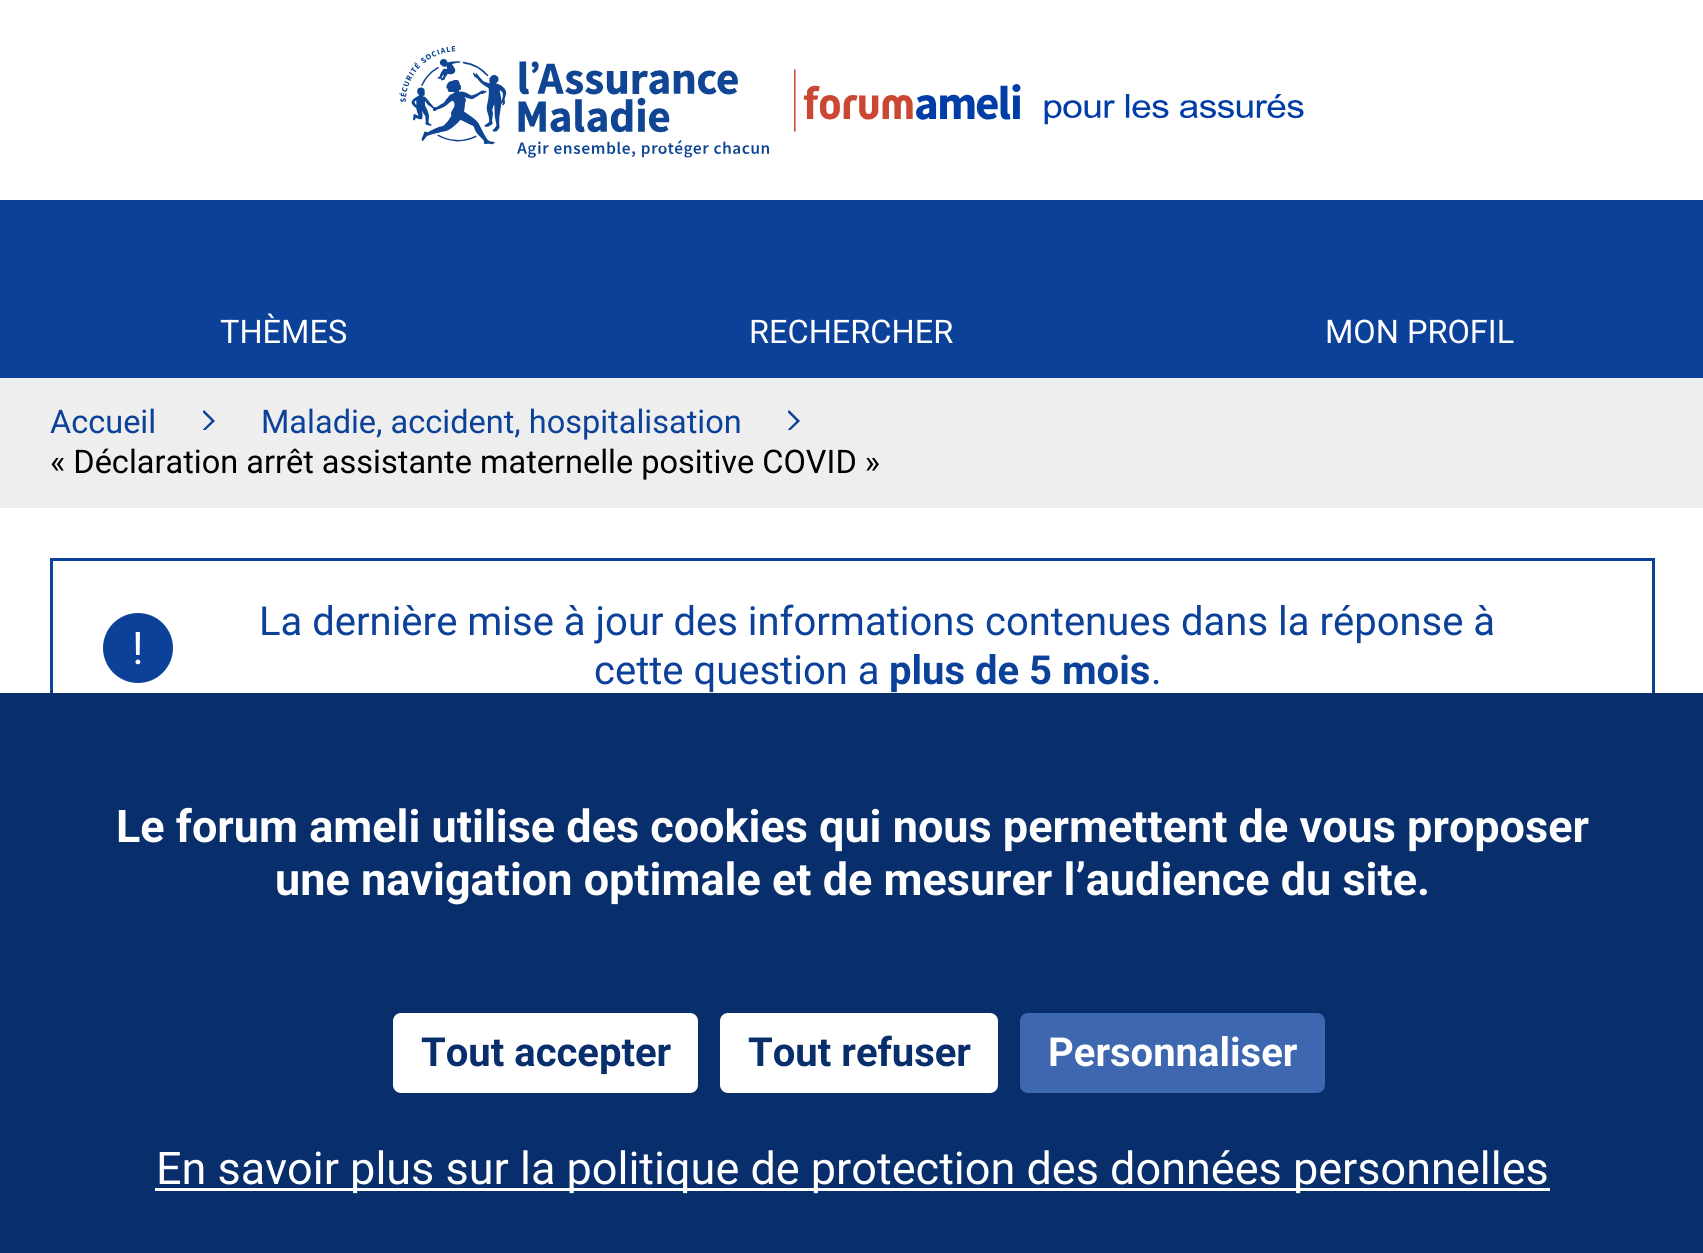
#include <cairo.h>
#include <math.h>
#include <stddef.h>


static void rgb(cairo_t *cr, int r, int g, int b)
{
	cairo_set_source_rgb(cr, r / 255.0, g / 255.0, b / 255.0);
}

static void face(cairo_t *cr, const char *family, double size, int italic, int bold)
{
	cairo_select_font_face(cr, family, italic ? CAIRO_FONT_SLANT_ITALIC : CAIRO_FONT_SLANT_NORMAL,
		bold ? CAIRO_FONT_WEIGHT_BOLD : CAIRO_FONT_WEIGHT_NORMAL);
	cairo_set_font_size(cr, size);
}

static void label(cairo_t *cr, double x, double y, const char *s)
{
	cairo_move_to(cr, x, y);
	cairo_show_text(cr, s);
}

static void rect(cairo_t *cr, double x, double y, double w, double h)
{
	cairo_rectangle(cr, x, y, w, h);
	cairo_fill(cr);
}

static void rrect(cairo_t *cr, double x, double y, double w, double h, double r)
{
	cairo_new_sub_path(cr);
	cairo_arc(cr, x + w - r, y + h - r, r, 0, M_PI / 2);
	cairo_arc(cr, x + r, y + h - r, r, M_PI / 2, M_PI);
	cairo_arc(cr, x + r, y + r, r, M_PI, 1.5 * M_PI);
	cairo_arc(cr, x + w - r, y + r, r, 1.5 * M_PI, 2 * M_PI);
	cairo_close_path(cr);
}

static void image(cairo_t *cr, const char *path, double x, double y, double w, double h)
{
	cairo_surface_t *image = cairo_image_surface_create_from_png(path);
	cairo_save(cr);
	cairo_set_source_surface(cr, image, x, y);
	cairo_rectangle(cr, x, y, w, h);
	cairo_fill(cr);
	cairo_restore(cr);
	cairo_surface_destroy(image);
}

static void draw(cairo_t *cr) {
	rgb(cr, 255, 255, 255);
	cairo_paint(cr);
	image(cr, "image0.png", 399, 46, 905, 112);
	rgb(cr, 12, 65, 154);
	rect(cr, 0, 200, 1703, 178);
	face(cr, "Roboto", 32.5, 0, 0);
	rgb(cr, 255, 255, 255);
	label(cr, 220, 343, "THÈMES");
	label(cr, 749, 343, "RECHERCHER");
	label(cr, 1325, 343, "MON PROFIL");
	rgb(cr, 238, 238, 238);
	rect(cr, 0, 378, 1703, 130);
	rgb(cr, 12, 65, 154);
	label(cr, 50, 433, "Accueil");
	cairo_save(cr);
	cairo_rectangle(cr, 203, 410, 12, 20);
	cairo_clip(cr);
	cairo_new_path(cr);
	cairo_move_to(cr, 215, 421);
	cairo_line_to(cr, 204, 431.5);
	cairo_line_to(cr, 202.5, 430);
	cairo_line_to(cr, 211.5, 421);
	cairo_line_to(cr, 202.5, 412);
	cairo_line_to(cr, 204, 410);
	cairo_close_path(cr);
	cairo_fill(cr);
	cairo_restore(cr);
	label(cr, 261, 433, "Maladie, accident, hospitalisation");
	cairo_save(cr);
	cairo_rectangle(cr, 788, 410, 12, 20);
	cairo_clip(cr);
	cairo_new_path(cr);
	cairo_move_to(cr, 800, 421);
	cairo_line_to(cr, 789, 431.5);
	cairo_line_to(cr, 787.5, 430);
	cairo_line_to(cr, 796.5, 421);
	cairo_line_to(cr, 787.5, 412);
	cairo_line_to(cr, 789, 410);
	cairo_close_path(cr);
	cairo_fill(cr);
	cairo_restore(cr);
	rgb(cr, 0, 0, 0);
	label(cr, 50, 473, "« Déclaration arrêt assistante maternelle positive COVID »");
	cairo_rectangle(cr, 51.5, 559.5, 1602, 174);
	rgb(cr, 12, 65, 154);
	cairo_set_line_width(cr, 3);
	cairo_stroke(cr);
	face(cr, "Roboto", 40, 0, 0);
	label(cr, 259, 635, "La dernière mise à jour des informations contenues dans la réponse à");
	cairo_new_path(cr);
	cairo_arc(cr, 138, 648, 35, 0, 2 * M_PI);
	cairo_fill(cr);
	face(cr, "Roboto", 45, 0, 0);
	rgb(cr, 255, 255, 255);
	label(cr, 132, 664, "!");
	face(cr, "Roboto", 40, 0, 0);
	rgb(cr, 12, 65, 154);
	label(cr, 594, 684, "cette question a");
	face(cr, "Roboto", 40, 0, 1);
	label(cr, 889, 684, "plus de 5 mois");
	face(cr, "Roboto", 40, 0, 0);
	label(cr, 1151, 684, ".");
	rgb(cr, 8, 46, 108);
	rect(cr, 0, 693, 1703, 560);
	face(cr, "Roboto", 45, 0, 1);
	rgb(cr, 255, 255, 255);
	label(cr, 116, 842, "Le forum ameli utilise des cookies qui nous permettent de vous proposer");
	label(cr, 275, 895, "une navigation optimale et de mesurer l’audience du site.");
	rrect(cr, 394.5, 1014.5, 302, 77, 6.5);
	cairo_fill_preserve(cr);
	cairo_stroke(cr);
	face(cr, "Roboto", 40, 0, 1);
	rgb(cr, 8, 46, 108);
	label(cr, 421, 1066, "Tout accepter");
	rgb(cr, 255, 255, 255);
	rrect(cr, 721.5, 1014.5, 275, 77, 6.5);
	cairo_fill_preserve(cr);
	cairo_stroke(cr);
	rgb(cr, 8, 46, 108);
	label(cr, 748, 1066, "Tout refuser");
	rgb(cr, 61, 103, 174);
	rrect(cr, 1021.5, 1014.5, 302, 77, 6.5);
	cairo_fill_preserve(cr);
	cairo_stroke(cr);
	rgb(cr, 255, 255, 255);
	label(cr, 1048, 1066, "Personnaliser");
	rect(cr, 155, 1188, 1395, 3);
	face(cr, "Roboto", 45, 0, 0);
	label(cr, 156, 1184, "En savoir plus sur la politique de protection des données personnelles");
}

int main(void) {
	cairo_surface_t *surface = cairo_image_surface_create(CAIRO_FORMAT_RGB24, 1703, 1253);
	cairo_t *cr = cairo_create(surface);
	cairo_font_options_t *options = cairo_font_options_create();
	cairo_font_options_set_hint_metrics(options, CAIRO_HINT_METRICS_OFF);
	cairo_font_options_set_hint_style(options, CAIRO_HINT_STYLE_NONE);
	cairo_set_font_options(cr, options);
	cairo_set_miter_limit(cr, 4);
	draw(cr);
	cairo_surface_write_to_png(surface, "render.png");
	cairo_font_options_destroy(options);
	cairo_destroy(cr);
	cairo_surface_destroy(surface);
	return 0;
}
